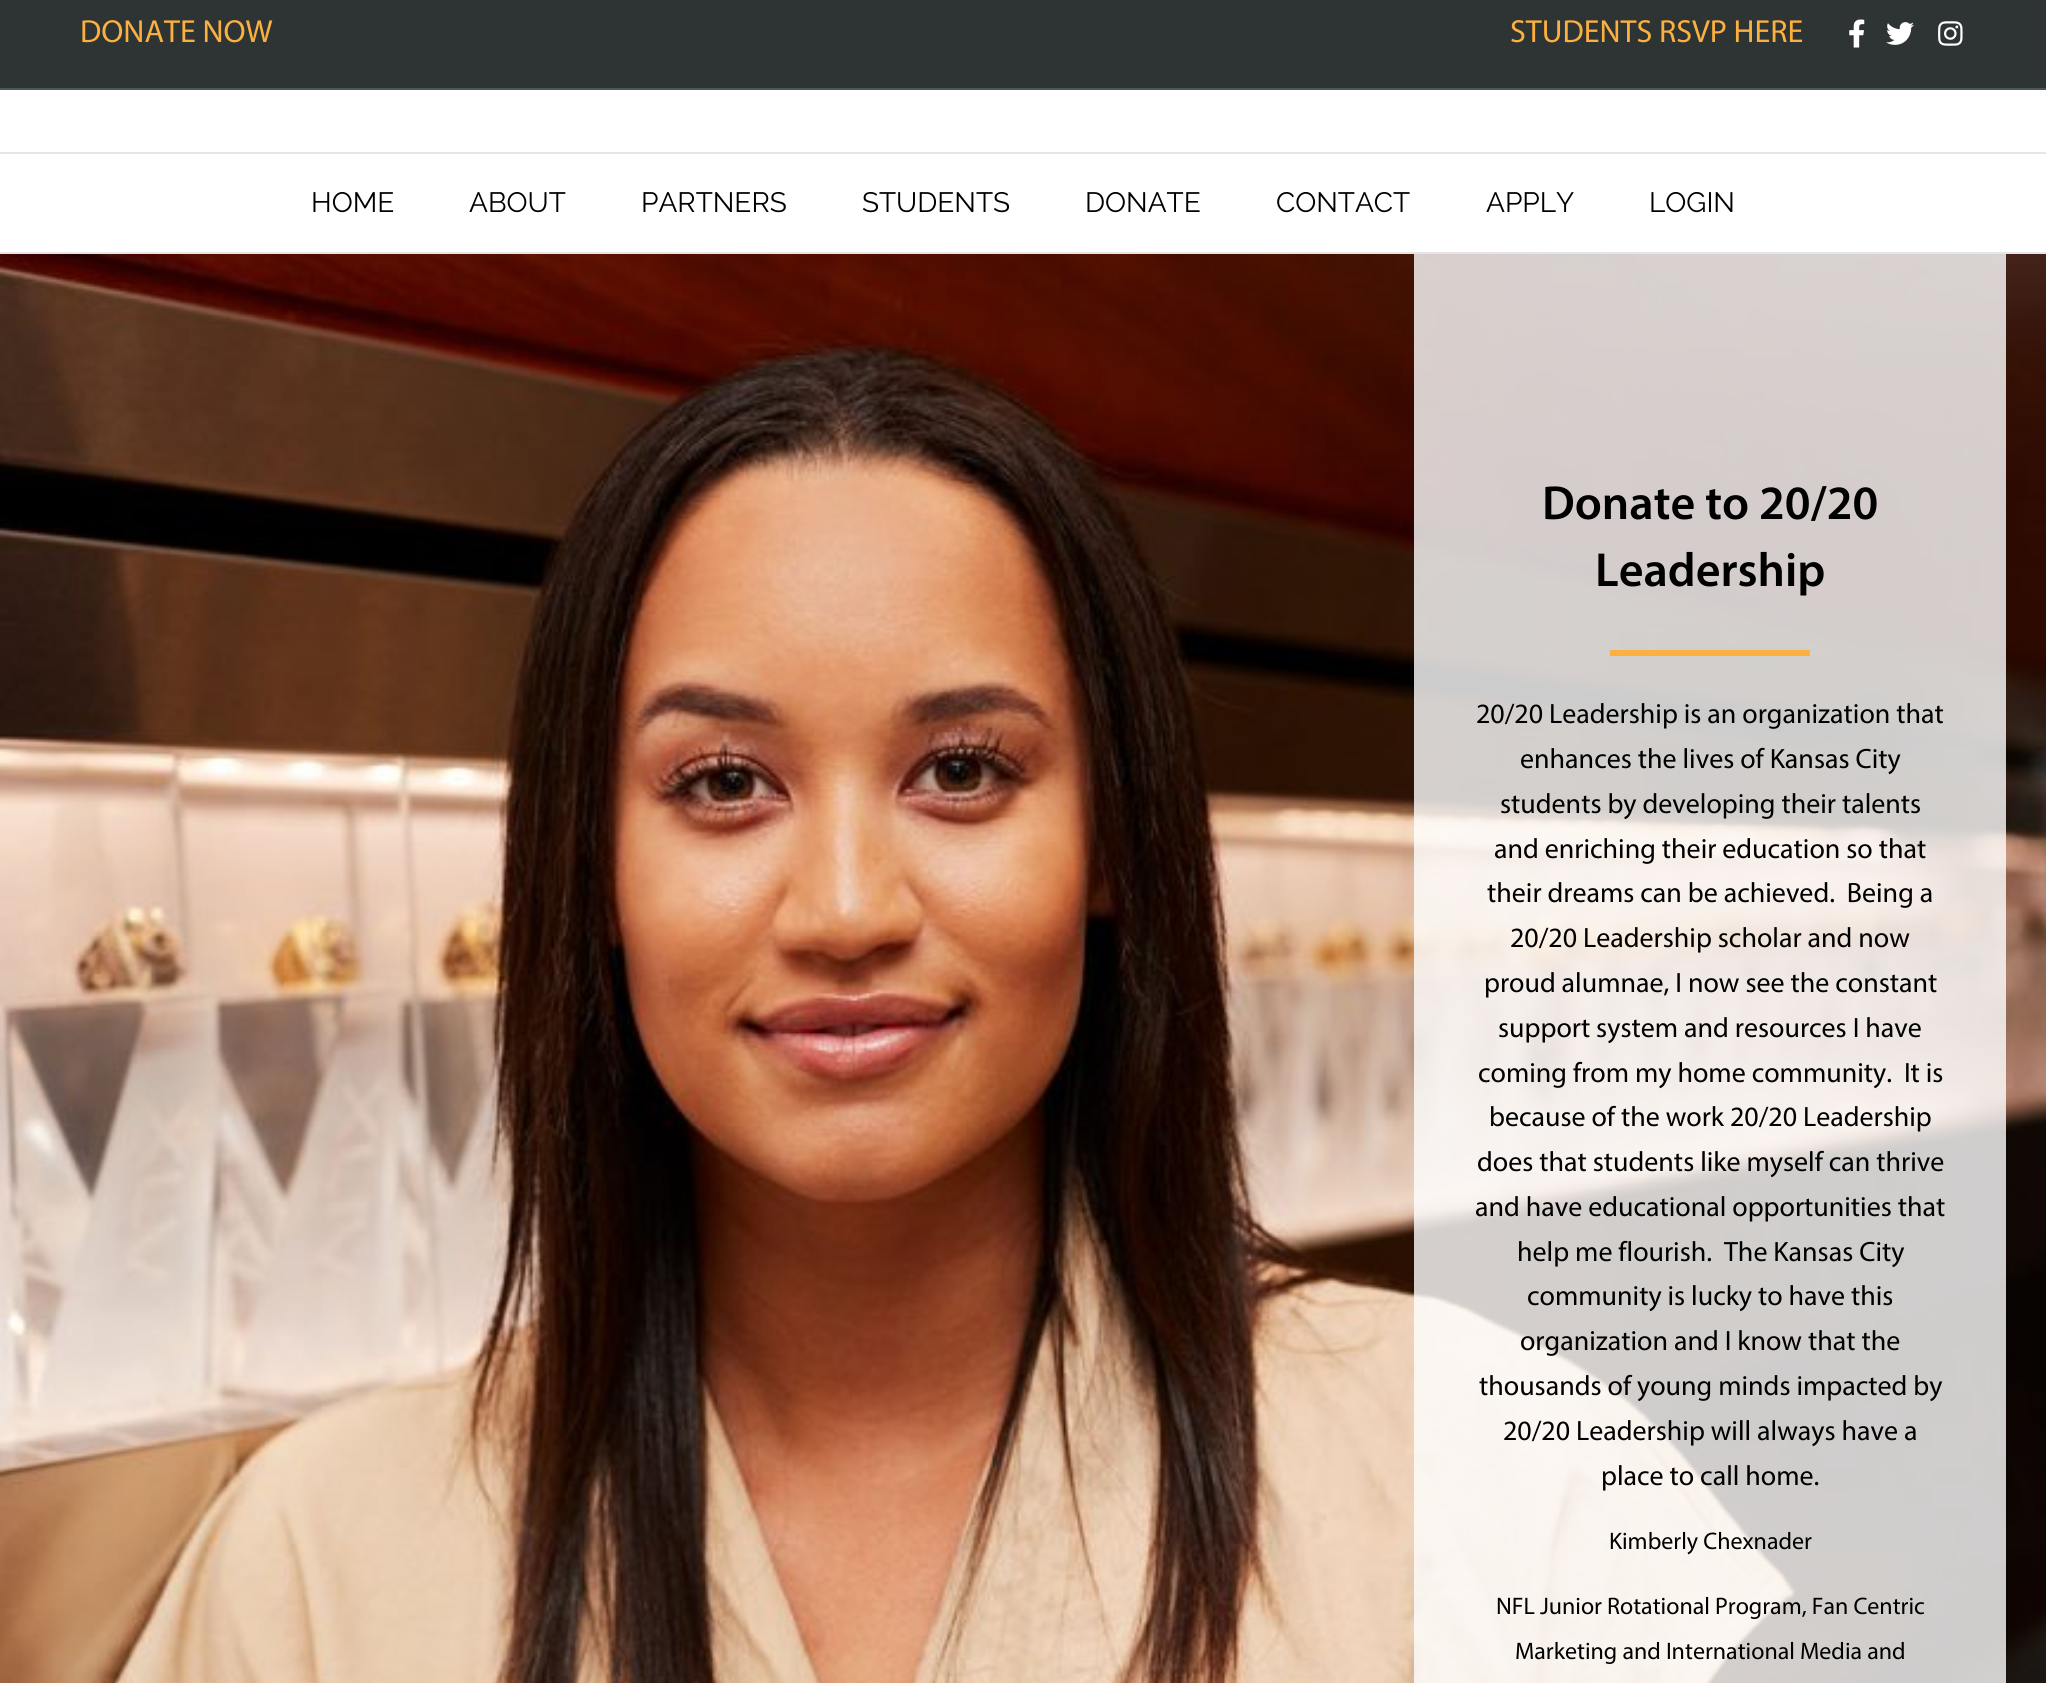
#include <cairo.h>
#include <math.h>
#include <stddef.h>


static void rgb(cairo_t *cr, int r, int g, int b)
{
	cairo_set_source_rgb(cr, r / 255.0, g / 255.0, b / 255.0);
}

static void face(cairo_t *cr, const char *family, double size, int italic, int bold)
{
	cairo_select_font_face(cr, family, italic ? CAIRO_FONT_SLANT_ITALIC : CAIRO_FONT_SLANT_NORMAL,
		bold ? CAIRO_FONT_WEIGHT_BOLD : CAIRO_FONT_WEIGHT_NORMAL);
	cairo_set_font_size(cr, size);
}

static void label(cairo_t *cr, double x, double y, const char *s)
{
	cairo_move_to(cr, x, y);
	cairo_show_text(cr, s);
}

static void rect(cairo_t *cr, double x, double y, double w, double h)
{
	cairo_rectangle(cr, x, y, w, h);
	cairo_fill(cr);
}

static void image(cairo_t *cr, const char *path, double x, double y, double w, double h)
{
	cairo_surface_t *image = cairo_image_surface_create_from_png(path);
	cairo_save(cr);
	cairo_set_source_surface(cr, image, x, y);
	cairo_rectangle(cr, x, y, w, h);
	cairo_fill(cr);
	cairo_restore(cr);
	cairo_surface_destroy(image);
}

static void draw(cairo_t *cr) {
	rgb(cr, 46, 52, 52);
	cairo_paint(cr);
	rgb(cr, 77, 87, 87);
	rect(cr, 0, 88, 2046, 2);
	face(cr, "Myriad", 32, 0, 0);
	rgb(cr, 252, 176, 64);
	label(cr, 80, 42, "DONATE NOW");
	label(cr, 1510, 42, "STUDENTS RSVP HERE");
	image(cr, "image0.png", 1849, 19, 16, 29);
	image(cr, "image1.png", 1886, 22, 28, 23);
	image(cr, "image2.png", 1938, 21, 25, 25);
	rgb(cr, 255, 255, 255);
	rect(cr, 0, 90, 2046, 162);
	rgb(cr, 230, 230, 230);
	rect(cr, 0, 152, 2046, 2);
	rect(cr, 0, 252, 2046, 2);
	face(cr, "Raleway", 28, 0, 0);
	rgb(cr, 0, 0, 0);
	label(cr, 311, 212, "HOME");
	label(cr, 469, 212, "ABOUT");
	label(cr, 641, 212, "PARTNERS");
	label(cr, 862, 212, "STUDENTS");
	label(cr, 1085, 212, "DONATE");
	label(cr, 1276, 212, "CONTACT");
	label(cr, 1486, 212, "APPLY");
	label(cr, 1649, 212, "LOGIN");
	image(cr, "image3.png", 0, 254, 2046, 1429);
	cairo_set_source_rgba(cr, 1, 1, 1, 0.8);
	rect(cr, 1414, 254, 592, 1429);
	face(cr, "Myriad SemiBold", 48, 0, 0);
	rgb(cr, 0, 0, 0);
	label(cr, 1542, 519, "Donate to 20/20");
	label(cr, 1595, 586, "Leadership");
	rgb(cr, 252, 176, 64);
	rect(cr, 1610, 650, 200, 6);
	face(cr, "Myriad", 28, 0, 0);
	rgb(cr, 0, 0, 0);
	label(cr, 1476, 723, "20/20 Leadership is an organization that");
	label(cr, 1520, 768, "enhances the lives of Kansas City");
	label(cr, 1500, 813, "students by developing their talents");
	label(cr, 1494, 858, "and enriching their education so that");
	label(cr, 1487, 902, "their dreams can be achieved.  Being a");
	label(cr, 1510, 947, "20/20 Leadership scholar and now");
	label(cr, 1484, 992, "proud alumnae, I now see the constant");
	label(cr, 1498, 1037, "support system and resources I have");
	label(cr, 1478, 1082, "coming from my home community.  It is");
	label(cr, 1489, 1126, "because of the work 20/20 Leadership");
	label(cr, 1477, 1171, "does that students like myself can thrive");
	label(cr, 1475, 1216, "and have educational opportunities that");
	label(cr, 1517, 1261, "help me flourish.  The Kansas City");
	label(cr, 1527, 1305, "community is lucky to have this");
	label(cr, 1520, 1350, "organization and I know that the");
	label(cr, 1479, 1395, "thousands of young minds impacted by");
	label(cr, 1503, 1440, "20/20 Leadership will always have a");
	label(cr, 1601, 1485, "place to call home.");
	face(cr, "Myriad", 24, 0, 0);
	label(cr, 1609, 1549, "Kimberly Chexnader");
	label(cr, 1496, 1614, "NFL Junior Rotational Program, Fan Centric");
	label(cr, 1515, 1659, "Marketing and International Media and");
}

int main(void) {
	cairo_surface_t *surface = cairo_image_surface_create(CAIRO_FORMAT_RGB24, 2046, 1683);
	cairo_t *cr = cairo_create(surface);
	cairo_font_options_t *options = cairo_font_options_create();
	cairo_font_options_set_hint_metrics(options, CAIRO_HINT_METRICS_OFF);
	cairo_font_options_set_hint_style(options, CAIRO_HINT_STYLE_NONE);
	cairo_set_font_options(cr, options);
	cairo_set_miter_limit(cr, 4);
	draw(cr);
	cairo_surface_write_to_png(surface, "render.png");
	cairo_font_options_destroy(options);
	cairo_destroy(cr);
	cairo_surface_destroy(surface);
	return 0;
}
